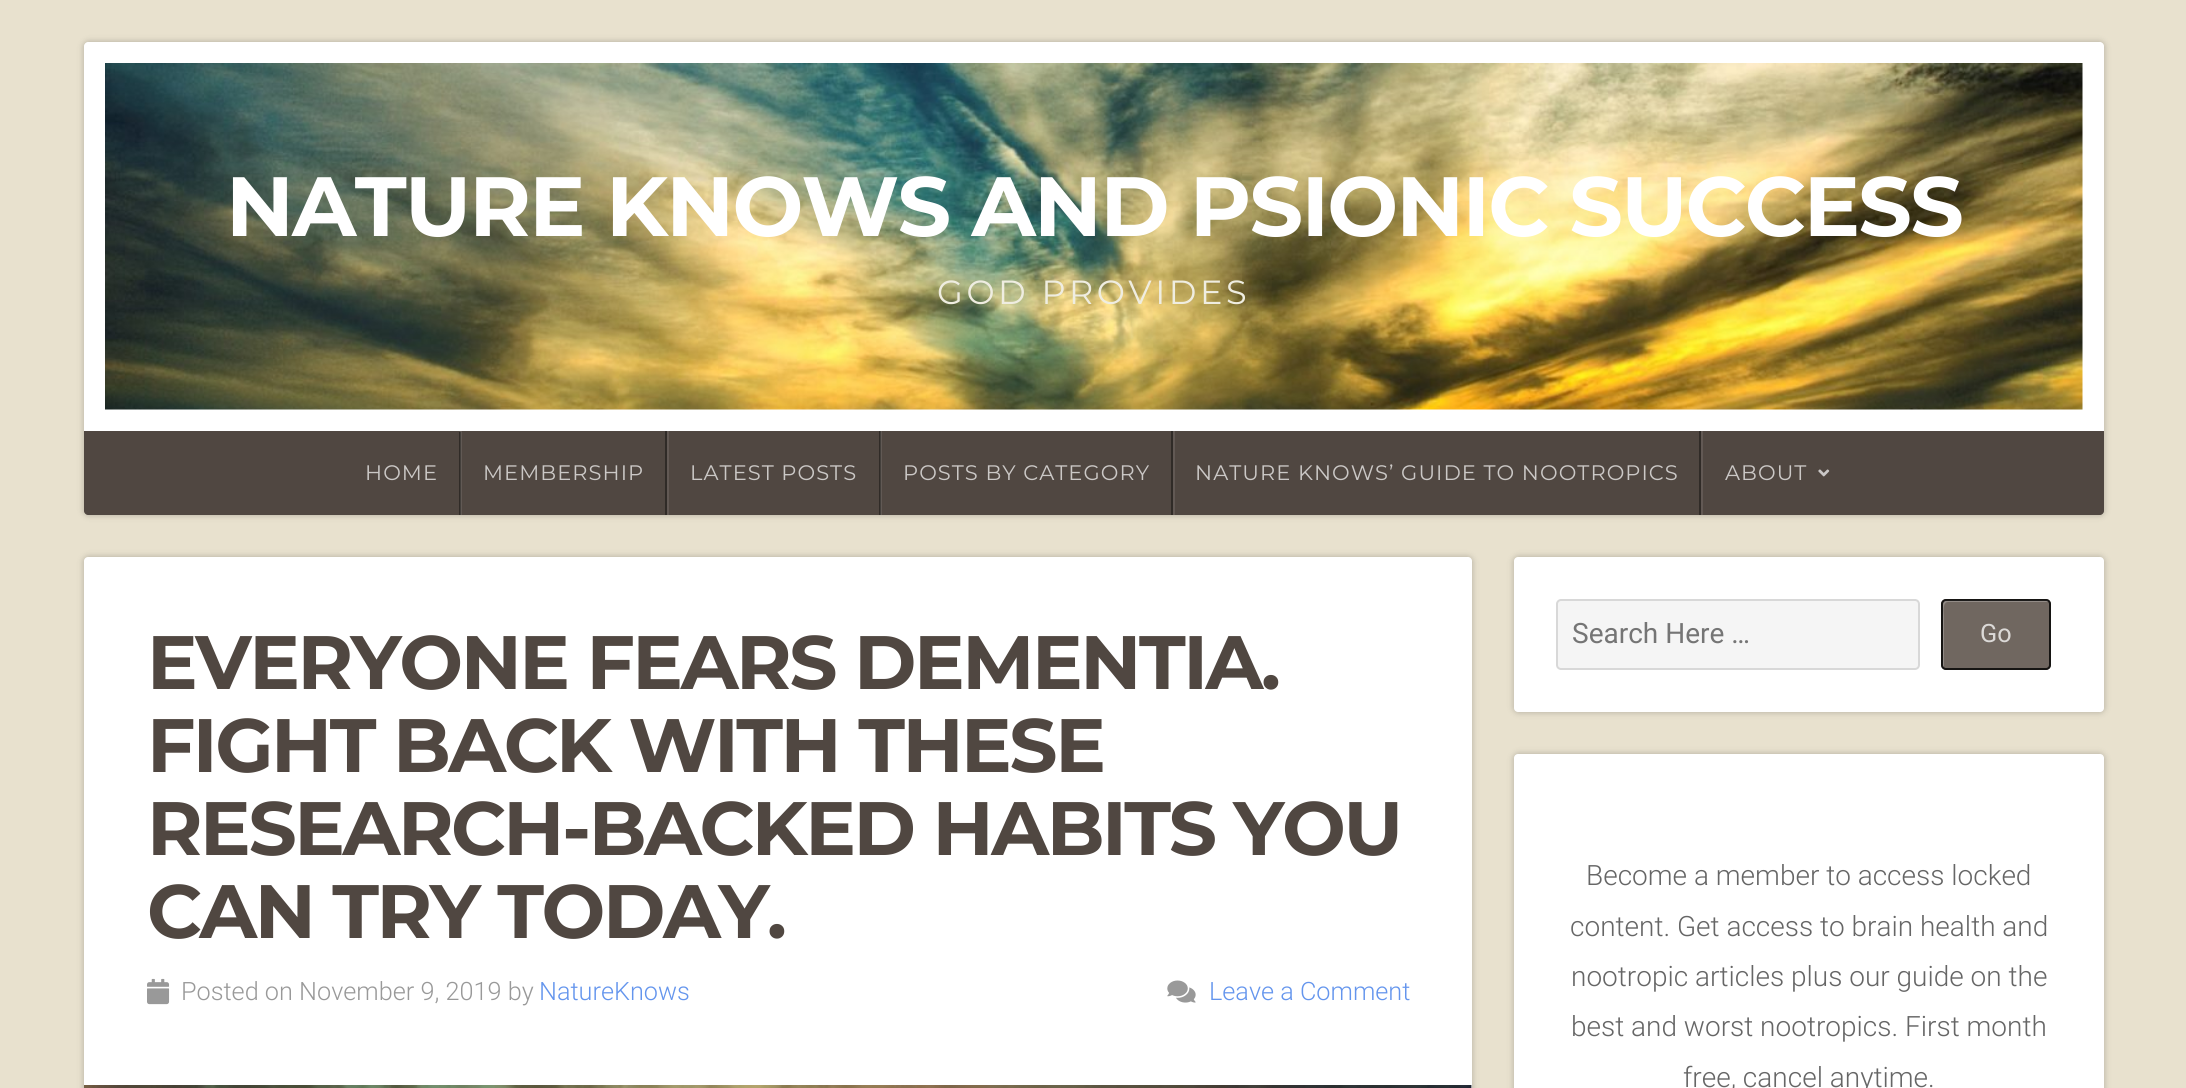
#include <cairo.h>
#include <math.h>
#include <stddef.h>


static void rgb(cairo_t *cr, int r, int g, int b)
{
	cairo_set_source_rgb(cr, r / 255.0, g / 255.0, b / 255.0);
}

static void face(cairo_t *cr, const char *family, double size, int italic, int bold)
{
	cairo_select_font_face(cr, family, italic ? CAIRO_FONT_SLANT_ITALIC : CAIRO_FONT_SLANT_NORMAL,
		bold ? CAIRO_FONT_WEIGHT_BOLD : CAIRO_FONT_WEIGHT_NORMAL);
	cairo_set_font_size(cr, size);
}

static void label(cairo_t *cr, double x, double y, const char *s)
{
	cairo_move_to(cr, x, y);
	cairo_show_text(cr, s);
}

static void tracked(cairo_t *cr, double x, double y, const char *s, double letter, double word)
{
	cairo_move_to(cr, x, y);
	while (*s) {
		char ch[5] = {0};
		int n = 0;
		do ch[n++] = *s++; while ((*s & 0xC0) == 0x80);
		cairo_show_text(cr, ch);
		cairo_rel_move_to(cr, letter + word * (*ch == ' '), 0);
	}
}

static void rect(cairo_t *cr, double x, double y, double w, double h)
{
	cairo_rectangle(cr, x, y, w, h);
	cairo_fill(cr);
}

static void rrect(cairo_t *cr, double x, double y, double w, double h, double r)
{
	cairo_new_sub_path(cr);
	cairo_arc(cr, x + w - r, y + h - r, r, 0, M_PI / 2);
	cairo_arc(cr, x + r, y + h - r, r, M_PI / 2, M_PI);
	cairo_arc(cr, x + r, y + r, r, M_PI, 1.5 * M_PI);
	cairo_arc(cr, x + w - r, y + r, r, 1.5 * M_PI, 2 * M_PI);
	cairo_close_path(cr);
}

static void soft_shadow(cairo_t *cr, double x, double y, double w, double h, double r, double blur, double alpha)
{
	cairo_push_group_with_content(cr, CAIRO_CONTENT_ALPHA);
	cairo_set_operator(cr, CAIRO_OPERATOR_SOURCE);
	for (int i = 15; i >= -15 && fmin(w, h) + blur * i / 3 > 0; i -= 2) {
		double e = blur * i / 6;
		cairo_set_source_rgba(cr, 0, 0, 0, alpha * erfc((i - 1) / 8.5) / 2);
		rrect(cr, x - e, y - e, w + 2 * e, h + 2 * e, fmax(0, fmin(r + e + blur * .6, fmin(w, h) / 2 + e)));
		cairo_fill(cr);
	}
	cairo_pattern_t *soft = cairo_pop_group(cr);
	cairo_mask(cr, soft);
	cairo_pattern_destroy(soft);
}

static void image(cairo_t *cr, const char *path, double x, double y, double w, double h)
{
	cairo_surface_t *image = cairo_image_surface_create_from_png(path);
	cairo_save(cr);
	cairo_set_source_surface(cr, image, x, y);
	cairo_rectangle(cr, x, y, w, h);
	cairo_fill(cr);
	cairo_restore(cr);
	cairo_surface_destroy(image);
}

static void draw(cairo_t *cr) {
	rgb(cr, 232, 225, 206);
	cairo_paint(cr);
	rgb(cr, 0, 0, 0);
	soft_shadow(cr, 84, 42, 2020, 473, 4, 3.5, 0.24);
	rgb(cr, 255, 255, 255);
	cairo_new_path(cr);
	cairo_move_to(cr, 88, 42);
	cairo_line_to(cr, 2100, 42);
	cairo_curve_to(cr, 2102, 42, 2104, 44, 2104, 46);
	cairo_line_to(cr, 2104, 431);
	cairo_line_to(cr, 84, 431);
	cairo_line_to(cr, 84, 46);
	cairo_curve_to(cr, 84, 44, 86, 42, 88, 42);
	cairo_close_path(cr);
	cairo_fill(cr);
	image(cr, "image0.png", 105, 63, 1978, 347);
	face(cr, "Montserrat", 84, 0, 1);
	tracked(cr, 226, 236, "NATURE KNOWS AND PSIONIC SUCCESS", -1.75, 0);
	face(cr, "Montserrat", 33.5, 0, 0);
	rgb(cr, 239, 237, 225);
	tracked(cr, 937, 304, "GOD PROVIDES", 3.5, 0);
	rgb(cr, 80, 71, 65);
	cairo_new_path(cr);
	cairo_move_to(cr, 84, 431);
	cairo_line_to(cr, 2104, 431);
	cairo_line_to(cr, 2104, 511);
	cairo_curve_to(cr, 2104, 513, 2102, 515, 2100, 515);
	cairo_line_to(cr, 88, 515);
	cairo_curve_to(cr, 86, 515, 84, 513, 84, 511);
	cairo_close_path(cr);
	cairo_fill(cr);
	rgb(cr, 48, 43, 39);
	rect(cr, 459, 432, 2, 83);
	face(cr, "Montserrat", 21, 0, 0);
	rgb(cr, 203, 200, 198);
	tracked(cr, 365, 480, "HOME", 1.05, 0);
	rgb(cr, 48, 43, 39);
	rect(cr, 665, 431, 2, 84);
	cairo_set_source_rgba(cr, 1, 1, 1, 0.1);
	rect(cr, 460, 431, 2, 84);
	rgb(cr, 203, 200, 198);
	tracked(cr, 483, 480, "MEMBERSHIP", 1.05, 0);
	rgb(cr, 48, 43, 39);
	rect(cr, 879, 431, 2, 84);
	rgb(cr, 98, 89, 84);
	rect(cr, 667, 431, 2, 84);
	rgb(cr, 203, 200, 198);
	tracked(cr, 690, 480, "LATEST POSTS", 1.05, 0);
	rgb(cr, 48, 43, 39);
	rect(cr, 1171, 431, 2, 84);
	cairo_set_source_rgba(cr, 1, 1, 1, 0.1);
	rect(cr, 880, 431, 2, 84);
	rgb(cr, 203, 200, 198);
	tracked(cr, 903, 480, "POSTS BY CATEGORY", 1.05, 0);
	rgb(cr, 48, 43, 39);
	rect(cr, 1699, 431, 2, 84);
	rgb(cr, 98, 89, 84);
	rect(cr, 1173, 431, 2, 84);
	rgb(cr, 203, 200, 198);
	tracked(cr, 1195, 480, "NATURE KNOWS’ GUIDE TO NOOTROPICS", 1.05, 0);
	rgb(cr, 98, 89, 84);
	rect(cr, 1701, 431, 2, 84);
	rgb(cr, 203, 200, 198);
	tracked(cr, 1725, 480, "ABOUT", 1.05, 0);
	image(cr, "image1.png", 1818, 469, 12, 8);
	rgb(cr, 0, 0, 0);
	soft_shadow(cr, 84, 557, 1388, 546, 4, 3.5, 0.24);
	rgb(cr, 255, 255, 255);
	rrect(cr, 84, 557, 1388, 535, 4);
	cairo_fill(cr);
	face(cr, "Montserrat", 75.6, 0, 1);
	rgb(cr, 80, 71, 65);
	tracked(cr, 147, 689, "EVERYONE FEARS DEMENTIA.", -2.45, 0);
	tracked(cr, 147, 772, "FIGHT BACK WITH THESE", -2.45, 0);
	tracked(cr, 147, 855, "RESEARCH-BACKED HABITS YOU", -2.45, 0);
	tracked(cr, 147, 938, "CAN TRY TODAY.", -2.45, 0);
	image(cr, "image2.png", 147, 978, 23, 27);
	face(cr, "Roboto Light", 25.25, 0, 0);
	rgb(cr, 153, 153, 153);
	label(cr, 181, 1000, "Posted on November 9, 2019 by");
	rgb(cr, 100, 149, 237);
	label(cr, 539, 1000, "NatureKnows");
	image(cr, "image3.png", 1167, 980, 29, 23);
	label(cr, 1209, 1000, "Leave a Comment");
	image(cr, "image4.png", 84, 1085, 1388, 3);
	rgb(cr, 0, 0, 0);
	soft_shadow(cr, 1514, 557, 590, 155, 4, 3.5, 0.24);
	rgb(cr, 255, 255, 255);
	rrect(cr, 1514, 557, 590, 155, 4);
	cairo_fill(cr);
	rgb(cr, 245, 245, 245);
	rrect(cr, 1556, 599, 364, 71, 5);
	cairo_fill(cr);
	rrect(cr, 1557, 600, 362, 69, 4);
	cairo_set_source_rgba(cr, 0, 0, 0, 0.12);
	cairo_stroke(cr);
	face(cr, "Roboto", 28, 0, 0);
	rgb(cr, 117, 117, 117);
	label(cr, 1572, 643, "Search Here …");
	rgb(cr, 112, 103, 96);
	rrect(cr, 1941, 599, 110, 71, 5);
	cairo_fill(cr);
	rgb(cr, 146, 139, 134);
	cairo_new_path(cr);
	cairo_move_to(cr, 1948, 602);
	cairo_line_to(cr, 2049, 602);
	cairo_curve_to(cr, 2048, 601, 2047, 600, 2045, 600);
	cairo_line_to(cr, 1947, 600);
	cairo_curve_to(cr, 1945, 600, 1943, 602, 1943, 604);
	cairo_line_to(cr, 1943, 665);
	cairo_curve_to(cr, 1943, 666, 1943, 667, 1944, 668);
	cairo_line_to(cr, 1944, 616);
	cairo_curve_to(cr, 1944, 614, 1942, 602, 1948, 602);
	cairo_close_path(cr);
	cairo_fill(cr);
	rrect(cr, 1942, 600, 108, 69, 4);
	cairo_set_source_rgba(cr, 0, 0, 0, 0.8);
	cairo_stroke(cr);
	face(cr, "Roboto", 25.25, 0, 0);
	rgb(cr, 219, 217, 215);
	label(cr, 1980, 642, "Go");
	rgb(cr, 0, 0, 0);
	soft_shadow(cr, 1514, 754, 590, 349, 4, 3.5, 0.24);
	rgb(cr, 255, 255, 255);
	rrect(cr, 1514, 754, 590, 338, 4);
	cairo_fill(cr);
	face(cr, "Roboto Light", 28, 0, 0);
	rgb(cr, 102, 102, 102);
	label(cr, 1586, 885, "Become a member to access locked");
	label(cr, 1570, 936, "content. Get access to brain health and");
	label(cr, 1571, 986, "nootropic articles plus our guide on the");
	label(cr, 1571, 1036, "best and worst nootropics. First month");
	label(cr, 1683, 1087, "free, cancel anytime.");
}

int main(void) {
	cairo_surface_t *surface = cairo_image_surface_create(CAIRO_FORMAT_RGB24, 2186, 1088);
	cairo_t *cr = cairo_create(surface);
	cairo_font_options_t *options = cairo_font_options_create();
	cairo_font_options_set_hint_metrics(options, CAIRO_HINT_METRICS_OFF);
	cairo_font_options_set_hint_style(options, CAIRO_HINT_STYLE_NONE);
	cairo_set_font_options(cr, options);
	cairo_set_miter_limit(cr, 4);
	draw(cr);
	cairo_surface_write_to_png(surface, "render.png");
	cairo_font_options_destroy(options);
	cairo_destroy(cr);
	cairo_surface_destroy(surface);
	return 0;
}
